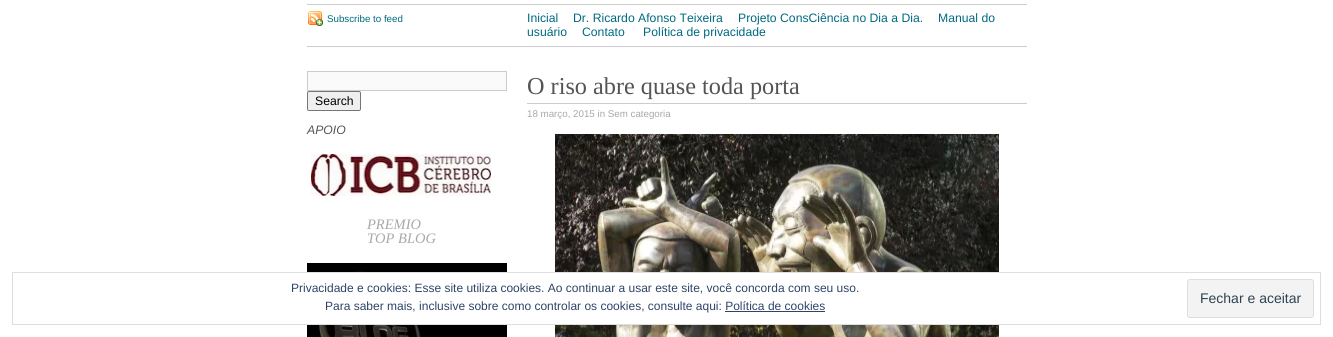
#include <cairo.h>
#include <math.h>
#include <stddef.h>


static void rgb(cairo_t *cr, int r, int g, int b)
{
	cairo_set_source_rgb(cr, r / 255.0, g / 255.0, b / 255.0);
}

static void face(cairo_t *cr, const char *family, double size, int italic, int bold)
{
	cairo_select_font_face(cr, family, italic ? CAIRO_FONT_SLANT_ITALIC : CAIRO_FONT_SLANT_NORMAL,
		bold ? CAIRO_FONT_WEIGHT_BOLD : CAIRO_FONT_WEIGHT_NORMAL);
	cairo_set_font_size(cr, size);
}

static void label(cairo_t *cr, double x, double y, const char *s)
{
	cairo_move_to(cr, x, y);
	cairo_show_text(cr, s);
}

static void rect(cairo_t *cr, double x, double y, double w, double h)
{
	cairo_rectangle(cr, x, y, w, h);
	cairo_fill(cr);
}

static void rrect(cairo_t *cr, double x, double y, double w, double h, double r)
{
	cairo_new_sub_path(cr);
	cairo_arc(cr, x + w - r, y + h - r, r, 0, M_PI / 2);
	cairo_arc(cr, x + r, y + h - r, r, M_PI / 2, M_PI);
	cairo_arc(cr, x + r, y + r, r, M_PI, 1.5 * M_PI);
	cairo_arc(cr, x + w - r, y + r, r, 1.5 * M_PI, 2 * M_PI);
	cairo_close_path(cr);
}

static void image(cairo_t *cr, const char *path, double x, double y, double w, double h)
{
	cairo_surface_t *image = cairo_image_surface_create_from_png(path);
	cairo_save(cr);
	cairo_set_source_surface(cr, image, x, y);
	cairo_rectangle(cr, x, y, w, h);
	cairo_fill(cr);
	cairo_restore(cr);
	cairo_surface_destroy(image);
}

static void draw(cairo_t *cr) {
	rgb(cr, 255, 255, 255);
	cairo_paint(cr);
	rgb(cr, 204, 204, 204);
	rect(cr, 307, 4, 720, 1);
	rect(cr, 307, 46, 720, 1);
	image(cr, "image0.png", 308, 11, 15, 15);
	face(cr, "Liberation Sans", 9.75, 0, 0);
	rgb(cr, 0, 106, 128);
	label(cr, 327, 22, "Subscribe to feed");
	face(cr, "Liberation Sans", 12.2, 0, 0);
	label(cr, 527, 22, "Inicial");
	label(cr, 573, 22, "Dr. Ricardo Afonso Teixeira");
	label(cr, 738, 22, "Projeto ConsCiência no Dia a Dia.");
	label(cr, 938, 22, "Manual do");
	label(cr, 527, 36, "usuário");
	label(cr, 582, 36, "Contato");
	label(cr, 643, 36, "Política de privacidade");
	rgb(cr, 250, 250, 250);
	cairo_rectangle(cr, 307.5, 71.5, 199, 19);
	cairo_fill_preserve(cr);
	rgb(cr, 204, 204, 204);
	cairo_set_line_width(cr, 1);
	cairo_stroke(cr);
	rgb(cr, 239, 239, 239);
	rrect(cr, 307.5, 91.5, 53, 19, 1.5);
	cairo_fill_preserve(cr);
	rgb(cr, 118, 118, 118);
	cairo_stroke(cr);
	rgb(cr, 0, 0, 0);
	label(cr, 315, 105, "Search");
	face(cr, "Liberation Sans", 12.2, 1, 0);
	rgb(cr, 84, 84, 84);
	label(cr, 307, 134, "APOIO");
	image(cr, "image1.png", 311, 154, 180, 42);
	face(cr, "Liberation Serif", 14.5, 1, 0);
	rgb(cr, 168, 168, 168);
	label(cr, 367, 229, "PREMIO");
	label(cr, 367, 243, "TOP BLOG");
	image(cr, "image2.png", 307, 263, 200, 74);
	rgb(cr, 204, 204, 204);
	rect(cr, 527, 103, 500, 1);
	face(cr, "Liberation Serif", 24.25, 0, 0);
	rgb(cr, 84, 84, 84);
	label(cr, 527, 94, "O riso abre quase toda porta");
	face(cr, "Liberation Sans", 9.75, 0, 0);
	rgb(cr, 168, 168, 168);
	label(cr, 527, 117, "18 março, 2015 in Sem categoria");
	image(cr, "image3.png", 555, 134, 444, 203);
	rgb(cr, 255, 255, 255);
	rect(cr, 307, 273, 692, 51);
	cairo_rectangle(cr, 12.5, 272.5, 1308, 52);
	rgb(cr, 222, 222, 222);
	cairo_stroke(cr);
	face(cr, "Liberation Sans", 12, 0, 0);
	rgb(cr, 46, 68, 103);
	label(cr, 291, 292, "Privacidade e cookies: Esse site utiliza cookies. Ao continuar a usar este site, você concorda com seu uso.");
	rgb(cr, 243, 243, 243);
	rrect(cr, 1187.5, 279.5, 126, 38, 2.5);
	cairo_fill_preserve(cr);
	rgb(cr, 222, 222, 222);
	cairo_stroke(cr);
	face(cr, "Liberation Sans", 14, 0, 0);
	rgb(cr, 46, 68, 83);
	label(cr, 1200, 303, "Fechar e aceitar");
	face(cr, "Liberation Sans", 12, 0, 0);
	rgb(cr, 46, 68, 103);
	label(cr, 325, 310, "Para saber mais, inclusive sobre como controlar os cookies, consulte aqui: Política de cookies");
	rect(cr, 725, 311, 100, 1);
}

int main(void) {
	cairo_surface_t *surface = cairo_image_surface_create(CAIRO_FORMAT_RGB24, 1333, 337);
	cairo_t *cr = cairo_create(surface);
	cairo_font_options_t *options = cairo_font_options_create();
	cairo_font_options_set_hint_metrics(options, CAIRO_HINT_METRICS_OFF);
	cairo_font_options_set_hint_style(options, CAIRO_HINT_STYLE_NONE);
	cairo_set_font_options(cr, options);
	cairo_set_miter_limit(cr, 4);
	draw(cr);
	cairo_surface_write_to_png(surface, "render.png");
	cairo_font_options_destroy(options);
	cairo_destroy(cr);
	cairo_surface_destroy(surface);
	return 0;
}
